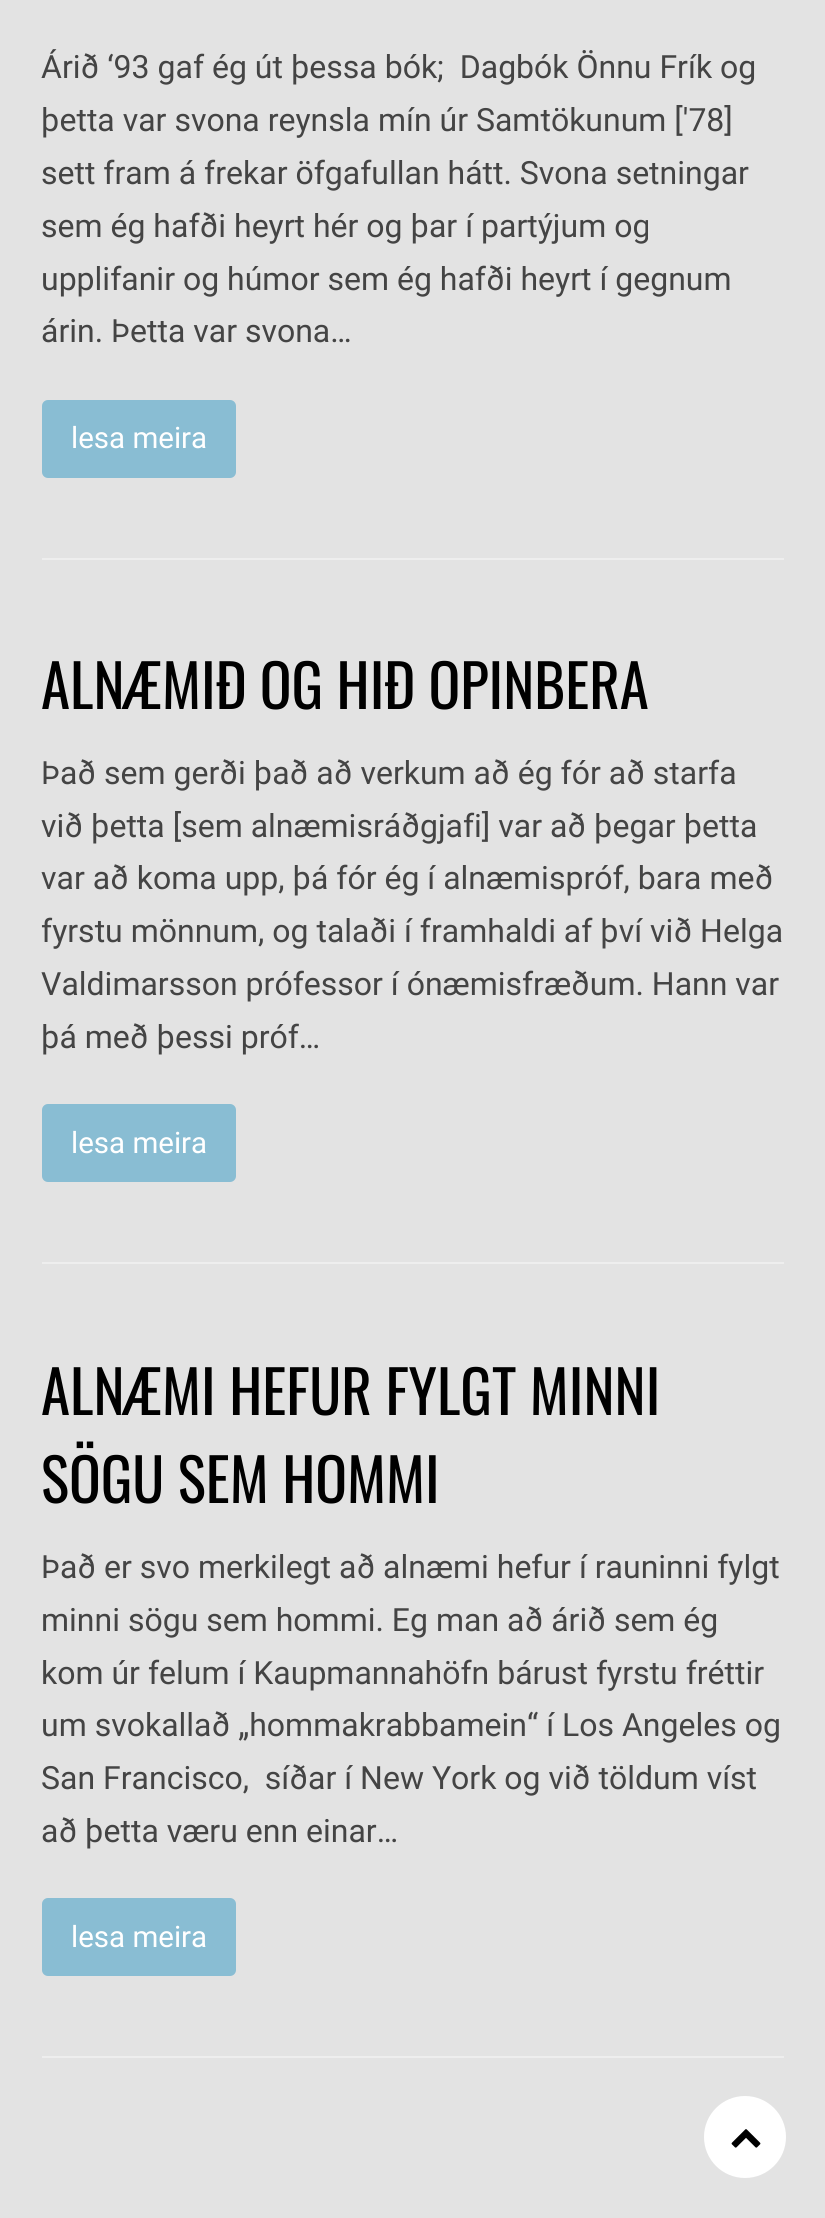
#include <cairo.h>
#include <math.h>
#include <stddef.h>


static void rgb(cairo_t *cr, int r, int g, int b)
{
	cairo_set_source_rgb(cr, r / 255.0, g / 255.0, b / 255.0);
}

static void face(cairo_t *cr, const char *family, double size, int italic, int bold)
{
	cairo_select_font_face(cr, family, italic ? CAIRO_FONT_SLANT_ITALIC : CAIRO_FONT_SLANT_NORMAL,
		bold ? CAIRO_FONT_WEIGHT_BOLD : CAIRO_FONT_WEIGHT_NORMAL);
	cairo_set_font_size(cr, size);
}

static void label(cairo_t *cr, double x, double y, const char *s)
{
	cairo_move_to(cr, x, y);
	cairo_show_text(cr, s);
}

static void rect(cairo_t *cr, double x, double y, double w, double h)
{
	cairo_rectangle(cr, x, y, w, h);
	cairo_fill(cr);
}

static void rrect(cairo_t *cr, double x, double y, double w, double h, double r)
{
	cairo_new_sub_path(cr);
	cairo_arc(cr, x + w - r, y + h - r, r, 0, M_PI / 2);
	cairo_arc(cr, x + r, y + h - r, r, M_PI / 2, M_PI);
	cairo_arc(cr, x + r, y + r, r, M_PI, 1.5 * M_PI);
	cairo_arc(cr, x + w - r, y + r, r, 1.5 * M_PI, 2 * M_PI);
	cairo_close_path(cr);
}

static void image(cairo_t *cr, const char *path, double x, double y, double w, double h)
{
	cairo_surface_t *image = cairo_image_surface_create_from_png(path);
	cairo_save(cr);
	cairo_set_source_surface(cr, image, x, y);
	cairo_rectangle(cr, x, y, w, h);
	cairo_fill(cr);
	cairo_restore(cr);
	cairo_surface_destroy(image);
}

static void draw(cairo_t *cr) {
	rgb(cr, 227, 227, 227);
	cairo_paint(cr);
	rgb(cr, 238, 238, 238);
	rect(cr, 42, 558, 742, 2);
	face(cr, "Roboto", 32, 0, 0);
	rgb(cr, 68, 68, 68);
	label(cr, 41, 78, "Árið ‘93 gaf ég út þessa bók;  Dagbók Önnu Frík og");
	label(cr, 41, 131, "þetta var svona reynsla mín úr Samtökunum ['78]");
	label(cr, 41, 184, "sett fram á frekar öfgafullan hátt. Svona setningar");
	label(cr, 41, 237, "sem ég hafði heyrt hér og þar í partýjum og");
	label(cr, 41, 290, "upplifanir og húmor sem ég hafði heyrt í gegnum");
	label(cr, 41, 342, "árin. Þetta var svona…");
	rgb(cr, 137, 189, 211);
	rrect(cr, 42, 400, 194, 78, 6);
	cairo_fill(cr);
	face(cr, "Roboto", 29.5, 0, 0);
	rgb(cr, 255, 255, 255);
	label(cr, 71, 448, "lesa meira");
	rgb(cr, 238, 238, 238);
	rect(cr, 42, 1262, 742, 2);
	face(cr, "Oswald", 59, 0, 0);
	rgb(cr, 0, 0, 0);
	label(cr, 41, 709, "ALNÆMIÐ OG HIÐ OPINBERA");
	face(cr, "Roboto", 32, 0, 0);
	rgb(cr, 68, 68, 68);
	label(cr, 41, 784, "Það sem gerði það að verkum að ég fór að starfa");
	label(cr, 41, 837, "við þetta [sem alnæmisráðgjafi] var að þegar þetta");
	label(cr, 41, 889, "var að koma upp, þá fór ég í alnæmispróf, bara með");
	label(cr, 41, 942, "fyrstu mönnum, og talaði í framhaldi af því við Helga");
	label(cr, 41, 995, "Valdimarsson prófessor í ónæmisfræðum. Hann var");
	label(cr, 41, 1048, "þá með þessi próf…");
	rgb(cr, 137, 189, 211);
	rrect(cr, 42, 1104, 194, 78, 6);
	cairo_fill(cr);
	face(cr, "Roboto", 29.5, 0, 0);
	rgb(cr, 255, 255, 255);
	label(cr, 71, 1153, "lesa meira");
	rgb(cr, 238, 238, 238);
	rect(cr, 42, 2056, 742, 2);
	face(cr, "Oswald", 59, 0, 0);
	rgb(cr, 0, 0, 0);
	label(cr, 41, 1415, "ALNÆMI HEFUR FYLGT MINNI");
	label(cr, 41, 1503, "SÖGU SEM HOMMI");
	face(cr, "Roboto", 32, 0, 0);
	rgb(cr, 68, 68, 68);
	label(cr, 41, 1578, "Það er svo merkilegt að alnæmi hefur í rauninni fylgt");
	label(cr, 41, 1631, "minni sögu sem hommi. Eg man að árið sem ég");
	label(cr, 41, 1684, "kom úr felum í Kaupmannahöfn bárust fyrstu fréttir");
	label(cr, 41, 1736, "um svokallað „hommakrabbamein“ í Los Angeles og");
	label(cr, 41, 1789, "San Francisco,  síðar í New York og við töldum víst");
	label(cr, 41, 1842, "að þetta væru enn einar…");
	rgb(cr, 137, 189, 211);
	rrect(cr, 42, 1898, 194, 78, 6);
	cairo_fill(cr);
	face(cr, "Roboto", 29.5, 0, 0);
	rgb(cr, 255, 255, 255);
	label(cr, 71, 1947, "lesa meira");
	cairo_new_path(cr);
	cairo_arc(cr, 745, 2137, 38, 0, 2 * M_PI);
	cairo_fill_preserve(cr);
	cairo_set_line_width(cr, 6);
	cairo_stroke(cr);
	image(cr, "image0.png", 731, 2129, 30, 19);
}

int main(void) {
	cairo_surface_t *surface = cairo_image_surface_create(CAIRO_FORMAT_RGB24, 825, 2218);
	cairo_t *cr = cairo_create(surface);
	cairo_font_options_t *options = cairo_font_options_create();
	cairo_font_options_set_hint_metrics(options, CAIRO_HINT_METRICS_OFF);
	cairo_font_options_set_hint_style(options, CAIRO_HINT_STYLE_NONE);
	cairo_set_font_options(cr, options);
	cairo_set_miter_limit(cr, 4);
	draw(cr);
	cairo_surface_write_to_png(surface, "render.png");
	cairo_font_options_destroy(options);
	cairo_destroy(cr);
	cairo_surface_destroy(surface);
	return 0;
}
